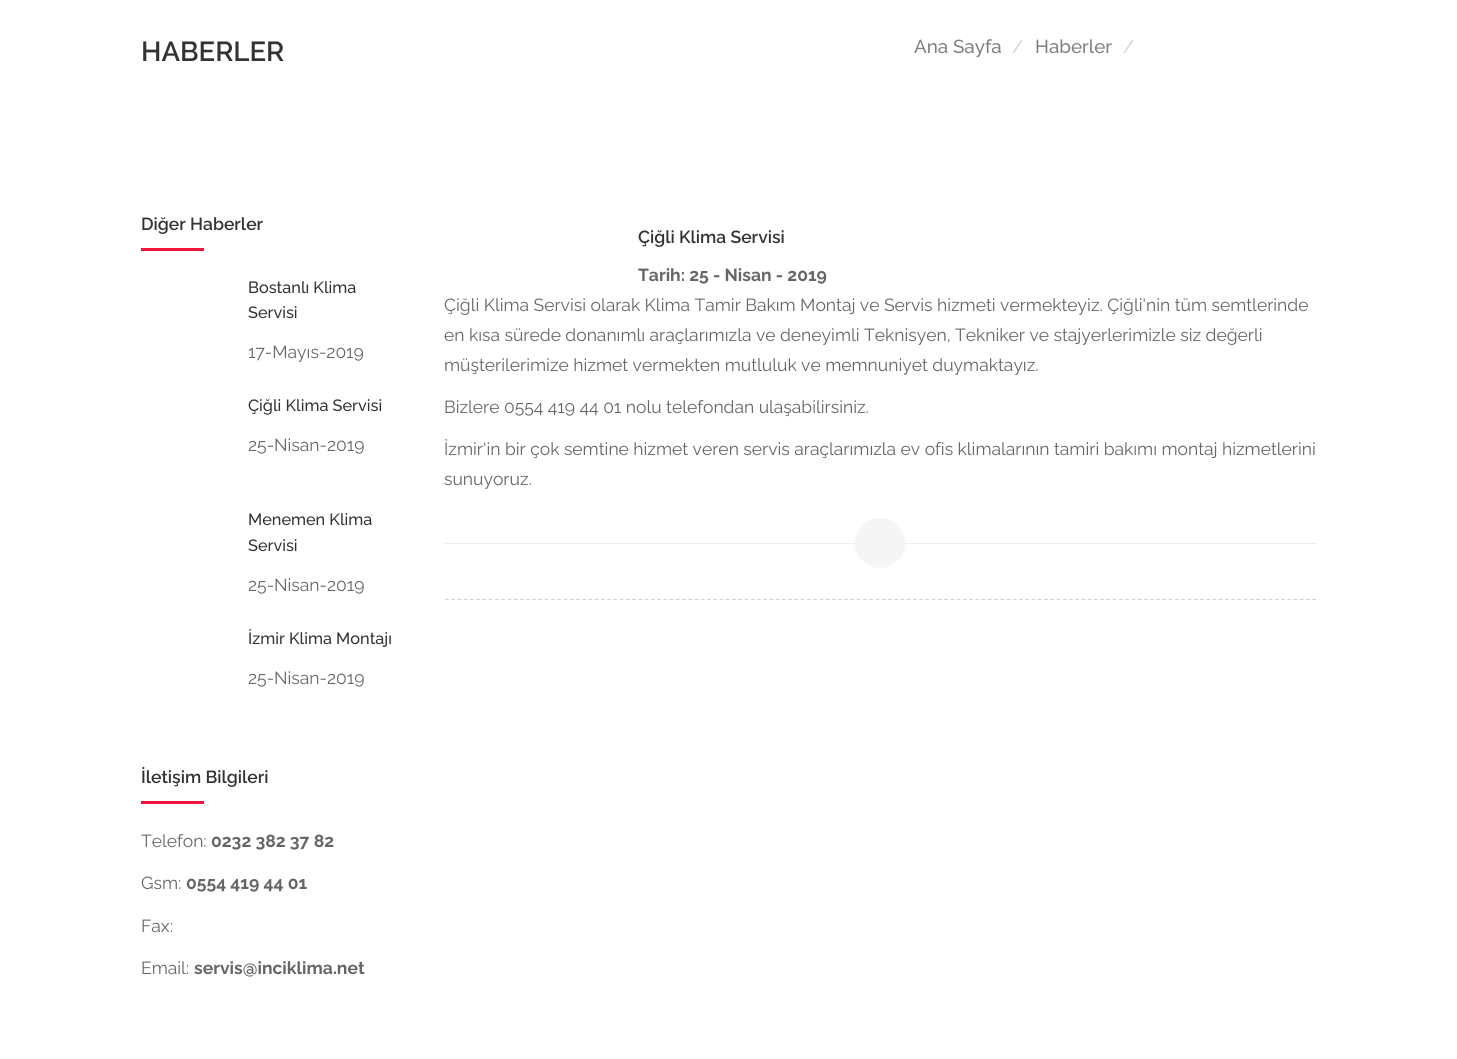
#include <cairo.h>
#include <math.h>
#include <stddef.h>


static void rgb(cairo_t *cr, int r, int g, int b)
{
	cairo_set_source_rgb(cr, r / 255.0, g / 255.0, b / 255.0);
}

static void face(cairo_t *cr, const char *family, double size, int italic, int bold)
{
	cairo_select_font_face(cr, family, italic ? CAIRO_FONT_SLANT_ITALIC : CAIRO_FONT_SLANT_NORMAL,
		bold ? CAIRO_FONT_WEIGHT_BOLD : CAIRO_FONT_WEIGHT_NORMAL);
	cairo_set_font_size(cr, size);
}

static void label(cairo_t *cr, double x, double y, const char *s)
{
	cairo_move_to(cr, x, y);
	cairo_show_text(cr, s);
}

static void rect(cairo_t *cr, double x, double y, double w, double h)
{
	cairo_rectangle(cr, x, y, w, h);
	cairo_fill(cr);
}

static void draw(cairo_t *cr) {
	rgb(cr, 255, 255, 255);
	cairo_paint(cr);
	face(cr, "Raleway SemiBold", 27.5, 0, 0);
	rgb(cr, 51, 51, 51);
	label(cr, 141, 61, "HABERLER");
	face(cr, "Raleway Medium", 18.75, 0, 0);
	rgb(cr, 128, 128, 128);
	label(cr, 914, 53, "Ana Sayfa");
	face(cr, "Raleway", 18.75, 0, 0);
	rgb(cr, 204, 204, 204);
	label(cr, 1012, 53, "/");
	face(cr, "Raleway Medium", 18.75, 0, 0);
	rgb(cr, 128, 128, 128);
	label(cr, 1035, 53, "Haberler");
	face(cr, "Raleway", 18.75, 0, 0);
	rgb(cr, 204, 204, 204);
	label(cr, 1123, 53, "/");
	face(cr, "Raleway SemiBold", 17.5, 0, 0);
	rgb(cr, 51, 51, 51);
	label(cr, 141, 230, "Diğer Haberler");
	rgb(cr, 238, 22, 59);
	rect(cr, 141, 248, 63, 3);
	face(cr, "Raleway Medium", 16.25, 0, 0);
	rgb(cr, 51, 51, 51);
	label(cr, 248, 293, "Bostanlı Klima");
	label(cr, 248, 318, "Servisi");
	face(cr, "Raleway", 17.5, 0, 0);
	rgb(cr, 102, 102, 102);
	label(cr, 248, 358, "17-Mayıs-2019");
	face(cr, "Raleway Medium", 16.25, 0, 0);
	rgb(cr, 51, 51, 51);
	label(cr, 248, 411, "Çiğli Klima Servisi");
	face(cr, "Raleway", 17.5, 0, 0);
	rgb(cr, 102, 102, 102);
	label(cr, 248, 451, "25-Nisan-2019");
	face(cr, "Raleway Medium", 16.25, 0, 0);
	rgb(cr, 51, 51, 51);
	label(cr, 248, 525, "Menemen Klima");
	label(cr, 248, 551, "Servisi");
	face(cr, "Raleway", 17.5, 0, 0);
	rgb(cr, 102, 102, 102);
	label(cr, 248, 591, "25-Nisan-2019");
	face(cr, "Raleway Medium", 16.25, 0, 0);
	rgb(cr, 51, 51, 51);
	label(cr, 248, 644, "İzmir Klima Montajı");
	face(cr, "Raleway", 17.5, 0, 0);
	rgb(cr, 102, 102, 102);
	label(cr, 248, 684, "25-Nisan-2019");
	face(cr, "Raleway SemiBold", 17.5, 0, 0);
	rgb(cr, 51, 51, 51);
	label(cr, 141, 783, "İletişim Bilgileri");
	rgb(cr, 238, 22, 59);
	rect(cr, 141, 801, 63, 3);
	face(cr, "Raleway", 17.5, 0, 0);
	rgb(cr, 102, 102, 102);
	label(cr, 141, 847, "Telefon:");
	face(cr, "Raleway", 17.5, 0, 1);
	label(cr, 211, 847, "0232 382 37 82");
	face(cr, "Raleway", 17.5, 0, 0);
	label(cr, 141, 889, "Gsm:");
	face(cr, "Raleway", 17.5, 0, 1);
	label(cr, 186, 889, "0554 419 44 01");
	face(cr, "Raleway", 17.5, 0, 0);
	label(cr, 141, 932, "Fax:");
	label(cr, 141, 974, "Email:");
	face(cr, "Raleway", 17.5, 0, 1);
	label(cr, 194, 974, "servis@inciklima.net");
	cairo_new_path(cr);
	cairo_move_to(cr, 445, 599.5);
	cairo_line_to(cr, 1316, 599.5);
	rgb(cr, 211, 211, 211);
	cairo_set_line_width(cr, 1.2);
	cairo_set_dash(cr, (double[]){3.75, 2.49}, 2, 0);
	cairo_stroke(cr);
	face(cr, "Raleway SemiBold", 17.5, 0, 0);
	rgb(cr, 51, 51, 51);
	label(cr, 638, 243, "Çiğli Klima Servisi");
	face(cr, "Raleway", 17.5, 0, 1);
	rgb(cr, 102, 102, 102);
	label(cr, 638, 281, "Tarih: 25 - Nisan - 2019");
	face(cr, "Raleway", 17.5, 0, 0);
	label(cr, 444, 311, "Çiğli Klima Servisi olarak Klima Tamir Bakım Montaj ve Servis hizmeti vermekteyiz. Çiğli'nin tüm semtlerinde");
	label(cr, 444, 341, "en kısa sürede donanımlı araçlarımızla ve deneyimli Teknisyen, Tekniker ve stajyerlerimizle siz değerli");
	label(cr, 444, 371, "müşterilerimize hizmet vermekten mutluluk ve memnuniyet duymaktayız.");
	label(cr, 444, 413, "Bizlere 0554 419 44 01 nolu telefondan ulaşabilirsiniz.");
	label(cr, 444, 455, "İzmir'in bir çok semtine hizmet veren servis araçlarımızla ev ofis klimalarının tamiri bakımı montaj hizmetlerini");
	label(cr, 444, 485, "sunuyoruz.");
	rgb(cr, 238, 238, 238);
	rect(cr, 445, 543, 411, 1);
	rect(cr, 904, 543, 412, 1);
	rgb(cr, 245, 245, 245);
	cairo_new_path(cr);
	cairo_arc(cr, 880, 543, 25, 0, 2 * M_PI);
	cairo_fill(cr);
}

int main(void) {
	cairo_surface_t *surface = cairo_image_surface_create(CAIRO_FORMAT_RGB24, 1457, 1059);
	cairo_t *cr = cairo_create(surface);
	cairo_font_options_t *options = cairo_font_options_create();
	cairo_font_options_set_hint_metrics(options, CAIRO_HINT_METRICS_OFF);
	cairo_font_options_set_hint_style(options, CAIRO_HINT_STYLE_NONE);
	cairo_set_font_options(cr, options);
	cairo_set_miter_limit(cr, 4);
	draw(cr);
	cairo_surface_write_to_png(surface, "render.png");
	cairo_font_options_destroy(options);
	cairo_destroy(cr);
	cairo_surface_destroy(surface);
	return 0;
}
